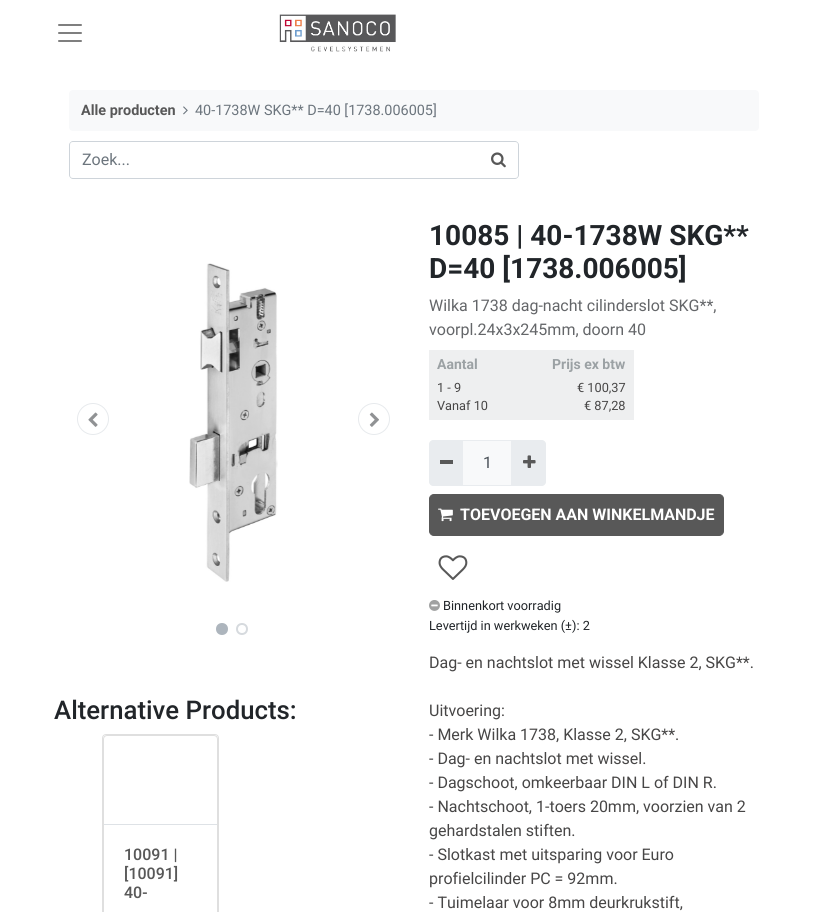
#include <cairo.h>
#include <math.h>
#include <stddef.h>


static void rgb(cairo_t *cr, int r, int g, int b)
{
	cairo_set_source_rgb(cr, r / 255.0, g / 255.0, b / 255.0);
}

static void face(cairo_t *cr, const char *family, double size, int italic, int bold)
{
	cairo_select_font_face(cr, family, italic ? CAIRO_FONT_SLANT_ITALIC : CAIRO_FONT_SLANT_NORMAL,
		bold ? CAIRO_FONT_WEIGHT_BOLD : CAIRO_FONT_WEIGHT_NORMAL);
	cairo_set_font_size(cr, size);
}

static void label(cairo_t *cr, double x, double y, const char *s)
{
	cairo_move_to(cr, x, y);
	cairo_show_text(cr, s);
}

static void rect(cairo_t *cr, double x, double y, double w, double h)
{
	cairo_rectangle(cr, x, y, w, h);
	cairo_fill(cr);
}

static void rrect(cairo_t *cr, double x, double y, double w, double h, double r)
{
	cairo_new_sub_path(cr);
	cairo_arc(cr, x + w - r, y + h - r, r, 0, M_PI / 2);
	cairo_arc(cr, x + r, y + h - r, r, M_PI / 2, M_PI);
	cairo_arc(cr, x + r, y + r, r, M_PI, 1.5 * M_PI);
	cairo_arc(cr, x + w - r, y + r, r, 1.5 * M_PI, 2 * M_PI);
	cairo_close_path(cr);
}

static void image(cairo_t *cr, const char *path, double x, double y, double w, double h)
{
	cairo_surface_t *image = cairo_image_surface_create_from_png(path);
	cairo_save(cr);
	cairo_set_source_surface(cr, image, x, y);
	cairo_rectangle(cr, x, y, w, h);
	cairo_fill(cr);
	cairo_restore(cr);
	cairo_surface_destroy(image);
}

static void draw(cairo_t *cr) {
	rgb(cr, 255, 255, 255);
	cairo_paint(cr);
	image(cr, "image0.png", 58, 24, 24, 18);
	image(cr, "image1.png", 279, 14, 117, 38);
	rgb(cr, 248, 249, 250);
	rrect(cr, 69, 90, 690, 41, 4);
	cairo_fill(cr);
	face(cr, "Roboto", 14.4, 0, 1);
	rgb(cr, 88, 88, 88);
	label(cr, 81, 115, "Alle producten");
	image(cr, "image2.png", 183, 106, 5, 9);
	face(cr, "Roboto", 14.4, 0, 0);
	rgb(cr, 108, 117, 125);
	label(cr, 195, 115, "40-1738W SKG** D=40 [1738.006005]");
	rgb(cr, 206, 212, 218);
	cairo_set_fill_rule(cr, CAIRO_FILL_RULE_EVEN_ODD);
	cairo_new_path(cr);
	cairo_move_to(cr, 73, 141);
	cairo_line_to(cr, 480, 141);
	cairo_line_to(cr, 480, 179);
	cairo_line_to(cr, 73, 179);
	cairo_curve_to(cr, 71, 179, 69, 177, 69, 175);
	cairo_line_to(cr, 69, 145);
	cairo_curve_to(cr, 69, 143, 71, 141, 73, 141);
	cairo_close_path(cr);
	cairo_move_to(cr, 73, 142);
	cairo_line_to(cr, 480, 142);
	cairo_line_to(cr, 480, 178);
	cairo_line_to(cr, 73, 178);
	cairo_curve_to(cr, 71, 178, 70, 177, 70, 175);
	cairo_line_to(cr, 70, 145);
	cairo_curve_to(cr, 70, 143, 71, 142, 73, 142);
	cairo_close_path(cr);
	cairo_fill(cr);
	face(cr, "Roboto", 16, 0, 0);
	rgb(cr, 108, 117, 125);
	label(cr, 82, 165, "Zoek...");
	rgb(cr, 206, 212, 218);
	cairo_new_path(cr);
	cairo_move_to(cr, 479, 141);
	cairo_line_to(cr, 515, 141);
	cairo_curve_to(cr, 517, 141, 519, 143, 519, 145);
	cairo_line_to(cr, 519, 175);
	cairo_curve_to(cr, 519, 177, 517, 179, 515, 179);
	cairo_line_to(cr, 479, 179);
	cairo_close_path(cr);
	cairo_move_to(cr, 479, 142);
	cairo_line_to(cr, 515, 142);
	cairo_curve_to(cr, 517, 142, 518, 143, 518, 145);
	cairo_line_to(cr, 518, 175);
	cairo_curve_to(cr, 518, 177, 517, 178, 515, 178);
	cairo_line_to(cr, 479, 178);
	cairo_close_path(cr);
	cairo_fill(cr);
	image(cr, "image3.png", 491, 152, 15, 16);
	cairo_arc(cr, 93, 419, 15.5, 0, 2 * M_PI);
	rgb(cr, 231, 234, 237);
	cairo_set_line_width(cr, 1);
	cairo_stroke(cr);
	image(cr, "image4.png", 88, 412, 10, 15);
	image(cr, "image5.png", 189, 263, 89, 319);
	cairo_arc(cr, 374, 419, 15.5, 0, 2 * M_PI);
	cairo_stroke(cr);
	image(cr, "image6.png", 369, 412, 10, 15);
	rgb(cr, 173, 181, 189);
	cairo_arc(cr, 222, 629, 5, 0, 2 * M_PI);
	cairo_fill_preserve(cr);
	cairo_set_line_width(cr, 2);
	cairo_stroke(cr);
	cairo_arc(cr, 242, 629, 5, 0, 2 * M_PI);
	rgb(cr, 214, 218, 222);
	cairo_stroke(cr);
	face(cr, "Roboto Medium", 25.75, 0, 0);
	rgb(cr, 33, 37, 41);
	label(cr, 54, 719, "Alternative Products:");
	rrect(cr, 102.5, 734.5, 116, 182, 3.5);
	rgb(cr, 223, 223, 223);
	cairo_set_line_width(cr, 1);
	cairo_stroke(cr);
	rrect(cr, 103.5, 735.5, 114, 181, 3.5);
	cairo_stroke(cr);
	rgb(cr, 222, 226, 230);
	rect(cr, 104, 824, 113, 1);
	face(cr, "Roboto Medium", 16, 0, 0);
	rgb(cr, 88, 88, 88);
	label(cr, 124, 860, "10091 |");
	label(cr, 124, 879, "[10091]");
	label(cr, 124, 898, "40-");
	face(cr, "Roboto", 28, 0, 1);
	rgb(cr, 33, 37, 41);
	label(cr, 429, 245, "10085 | 40-1738W SKG**");
	label(cr, 429, 278, "D=40 [1738.006005]");
	face(cr, "Roboto", 16, 0, 0);
	rgb(cr, 100, 102, 105);
	label(cr, 429, 311, "Wilka 1738 dag-nacht cilinderslot SKG**,");
	label(cr, 429, 335, "voorpl.24x3x245mm, doorn 40");
	rgb(cr, 238, 239, 240);
	rect(cr, 429, 350, 205, 70);
	face(cr, "Roboto", 14, 0, 1);
	rgb(cr, 155, 161, 164);
	label(cr, 437, 369, "Aantal");
	label(cr, 552, 369, "Prijs ex btw");
	face(cr, "Roboto", 12.75, 0, 0);
	rgb(cr, 71, 70, 70);
	label(cr, 437, 392, "1 - 9");
	label(cr, 577, 392, "€ 100,37");
	label(cr, 437, 410, "Vanaf 10");
	label(cr, 584, 410, "€ 87,28");
	rgb(cr, 248, 249, 250);
	cairo_rectangle(cr, 462.5, 440.5, 49, 45);
	cairo_fill_preserve(cr);
	rgb(cr, 233, 236, 239);
	cairo_stroke(cr);
	cairo_new_path(cr);
	cairo_move_to(cr, 433, 440);
	cairo_line_to(cr, 463, 440);
	cairo_line_to(cr, 463, 486);
	cairo_line_to(cr, 433, 486);
	cairo_curve_to(cr, 431, 486, 429, 484, 429, 482);
	cairo_line_to(cr, 429, 444);
	cairo_curve_to(cr, 429, 442, 431, 440, 433, 440);
	cairo_close_path(cr);
	cairo_fill(cr);
	rgb(cr, 88, 88, 88);
	rect(cr, 440, 460, 13, 4);
	face(cr, "Roboto", 16, 0, 0);
	rgb(cr, 73, 80, 87);
	label(cr, 483, 468, "1");
	rgb(cr, 233, 236, 239);
	cairo_new_path(cr);
	cairo_move_to(cr, 511, 440);
	cairo_line_to(cr, 542, 440);
	cairo_curve_to(cr, 544, 440, 546, 442, 546, 444);
	cairo_line_to(cr, 546, 482);
	cairo_curve_to(cr, 546, 484, 544, 486, 542, 486);
	cairo_line_to(cr, 511, 486);
	cairo_close_path(cr);
	cairo_fill(cr);
	image(cr, "image7.png", 523, 455, 13, 13);
	rgb(cr, 88, 88, 88);
	rrect(cr, 429.5, 494.5, 294, 41, 4.5);
	cairo_fill_preserve(cr);
	cairo_stroke(cr);
	image(cr, "image8.png", 438, 508, 15, 14);
	face(cr, "Roboto", 16, 0, 1);
	rgb(cr, 255, 255, 255);
	label(cr, 460, 520, "TOEVOEGEN AAN WINKELMANDJE");
	image(cr, "image9.png", 438, 555, 30, 25);
	image(cr, "image10.png", 429, 600, 11, 11);
	face(cr, "Roboto", 12.75, 0, 0);
	rgb(cr, 33, 37, 41);
	label(cr, 443, 610, "Binnenkort voorradig");
	label(cr, 429, 630, "Levertijd in werkweken (±): 2");
	face(cr, "Roboto", 16, 0, 0);
	rgb(cr, 71, 70, 70);
	label(cr, 429, 668, "Dag- en nachtslot met wissel Klasse 2, SKG**.");
	label(cr, 429, 716, "Uitvoering:");
	label(cr, 429, 740, "- Merk Wilka 1738, Klasse 2, SKG**.");
	label(cr, 429, 764, "- Dag- en nachtslot met wissel.");
	label(cr, 429, 788, "- Dagschoot, omkeerbaar DIN L of DIN R.");
	label(cr, 429, 812, "- Nachtschoot, 1-toers 20mm, voorzien van 2");
	label(cr, 429, 836, "gehardstalen stiften.");
	label(cr, 429, 860, "- Slotkast met uitsparing voor Euro");
	label(cr, 429, 884, "profielcilinder PC = 92mm.");
	label(cr, 429, 908, "- Tuimelaar voor 8mm deurkrukstift,");
}

int main(void) {
	cairo_surface_t *surface = cairo_image_surface_create(CAIRO_FORMAT_RGB24, 827, 912);
	cairo_t *cr = cairo_create(surface);
	cairo_font_options_t *options = cairo_font_options_create();
	cairo_font_options_set_hint_metrics(options, CAIRO_HINT_METRICS_OFF);
	cairo_font_options_set_hint_style(options, CAIRO_HINT_STYLE_NONE);
	cairo_set_font_options(cr, options);
	cairo_set_miter_limit(cr, 4);
	draw(cr);
	cairo_surface_write_to_png(surface, "render.png");
	cairo_font_options_destroy(options);
	cairo_destroy(cr);
	cairo_surface_destroy(surface);
	return 0;
}
